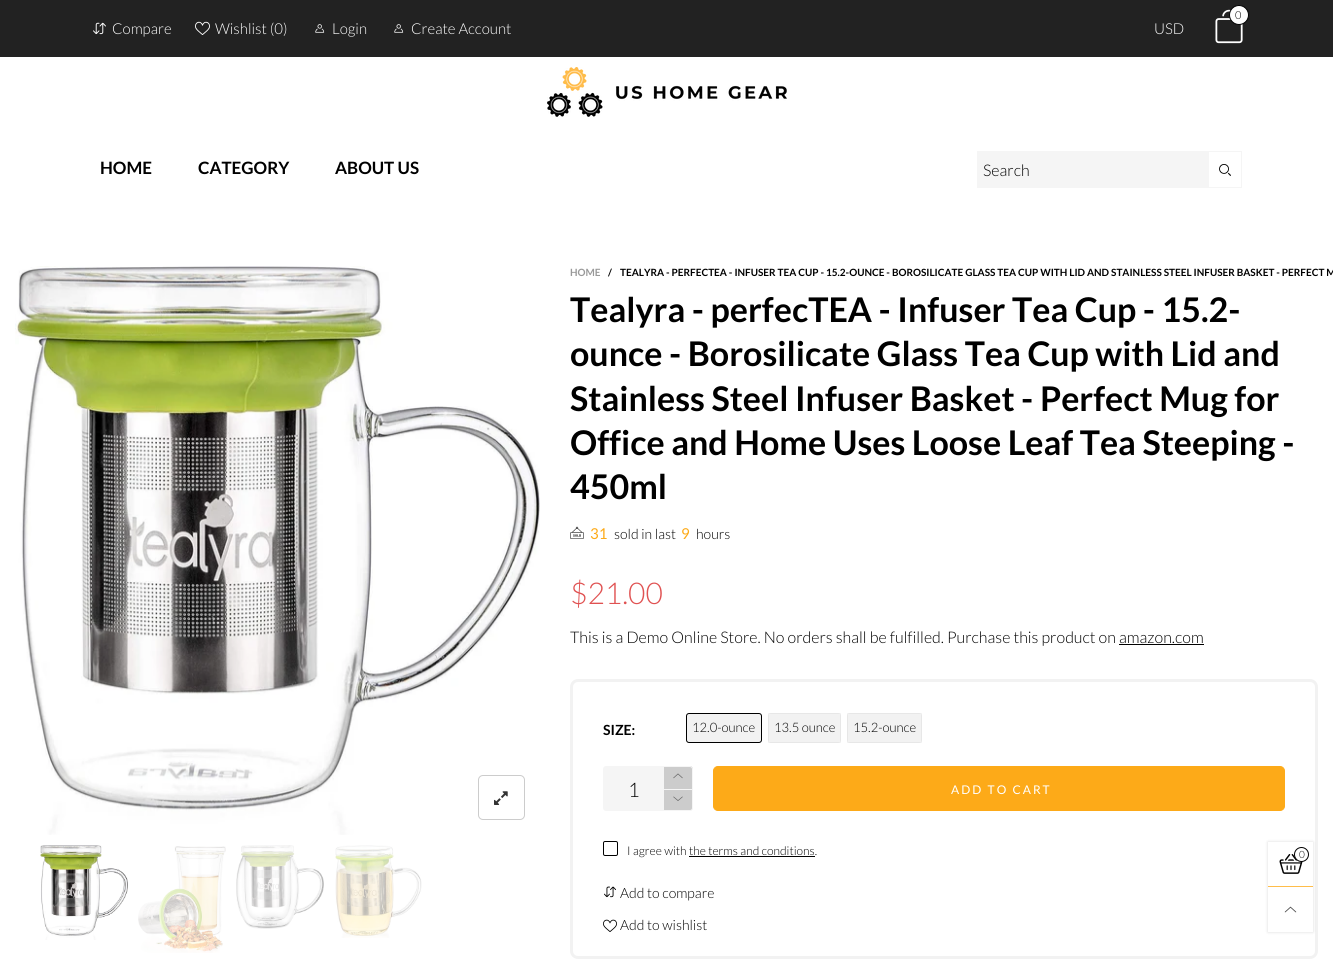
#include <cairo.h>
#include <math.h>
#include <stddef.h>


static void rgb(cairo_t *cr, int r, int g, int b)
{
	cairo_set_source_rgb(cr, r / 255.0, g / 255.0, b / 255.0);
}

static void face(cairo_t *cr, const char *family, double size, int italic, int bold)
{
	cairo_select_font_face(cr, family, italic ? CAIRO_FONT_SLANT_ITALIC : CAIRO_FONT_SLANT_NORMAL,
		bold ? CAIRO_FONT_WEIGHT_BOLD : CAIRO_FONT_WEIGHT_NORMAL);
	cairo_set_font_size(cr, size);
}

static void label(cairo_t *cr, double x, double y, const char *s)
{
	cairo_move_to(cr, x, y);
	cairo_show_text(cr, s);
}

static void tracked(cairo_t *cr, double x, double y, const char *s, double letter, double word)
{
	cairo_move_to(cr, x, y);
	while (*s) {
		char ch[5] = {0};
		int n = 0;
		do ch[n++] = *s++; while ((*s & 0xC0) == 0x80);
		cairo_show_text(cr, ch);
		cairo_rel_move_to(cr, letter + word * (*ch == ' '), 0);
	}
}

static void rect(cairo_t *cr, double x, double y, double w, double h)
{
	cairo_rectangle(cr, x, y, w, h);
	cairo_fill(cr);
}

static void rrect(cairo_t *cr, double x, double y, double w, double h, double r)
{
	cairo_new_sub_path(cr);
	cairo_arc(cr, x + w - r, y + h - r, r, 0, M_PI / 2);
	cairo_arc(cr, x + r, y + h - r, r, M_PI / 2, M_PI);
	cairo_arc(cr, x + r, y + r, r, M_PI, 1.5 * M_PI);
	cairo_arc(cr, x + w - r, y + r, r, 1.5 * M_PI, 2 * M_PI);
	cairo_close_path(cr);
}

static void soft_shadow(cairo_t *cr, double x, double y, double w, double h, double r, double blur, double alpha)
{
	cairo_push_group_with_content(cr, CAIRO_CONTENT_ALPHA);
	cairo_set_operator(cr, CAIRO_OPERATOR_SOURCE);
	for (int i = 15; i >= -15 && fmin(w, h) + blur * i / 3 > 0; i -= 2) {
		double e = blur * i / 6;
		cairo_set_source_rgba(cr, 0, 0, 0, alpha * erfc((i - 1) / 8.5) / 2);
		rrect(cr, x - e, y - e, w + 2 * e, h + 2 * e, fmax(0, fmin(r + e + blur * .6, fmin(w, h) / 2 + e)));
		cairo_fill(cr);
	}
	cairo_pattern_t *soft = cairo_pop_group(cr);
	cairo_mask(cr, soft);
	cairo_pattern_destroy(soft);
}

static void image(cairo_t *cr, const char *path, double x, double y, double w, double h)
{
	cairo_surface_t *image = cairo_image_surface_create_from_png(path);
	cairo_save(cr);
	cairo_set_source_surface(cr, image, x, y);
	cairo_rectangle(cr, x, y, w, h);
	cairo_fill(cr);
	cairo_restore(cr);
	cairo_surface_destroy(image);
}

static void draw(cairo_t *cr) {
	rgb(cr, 255, 255, 255);
	cairo_paint(cr);
	rgb(cr, 34, 34, 34);
	rect(cr, 0, 0, 1333, 57);
	image(cr, "image0.png", 93, 22, 13, 13);
	face(cr, "Lato Light", 15, 0, 0);
	rgb(cr, 255, 255, 255);
	label(cr, 112, 34, "Compare");
	image(cr, "image1.png", 195, 21, 15, 14);
	label(cr, 215, 34, "Wishlist (0)");
	image(cr, "image2.png", 315, 24, 10, 9);
	label(cr, 332, 34, "Login");
	image(cr, "image2.png", 394, 24, 10, 9);
	label(cr, 411, 34, "Create Account");
	image(cr, "image3.png", 1215, 9, 28, 35);
	cairo_arc(cr, 1239, 15, 9.5, 0, 2 * M_PI);
	cairo_fill_preserve(cr);
	rgb(cr, 0, 0, 0);
	cairo_set_line_width(cr, 1);
	cairo_stroke(cr);
	face(cr, "Lato Light", 11, 0, 0);
	label(cr, 1235, 19, "0");
	face(cr, "Lato Light", 15, 0, 0);
	rgb(cr, 255, 255, 255);
	label(cr, 1154, 34, "USD");
	image(cr, "image4.png", 547, 67, 240, 50);
	face(cr, "Lato", 17, 0, 1);
	rgb(cr, 0, 0, 0);
	label(cr, 100, 174, "HOME");
	label(cr, 198, 174, "CATEGORY");
	label(cr, 335, 174, "ABOUT US");
	rgb(cr, 245, 245, 245);
	rect(cr, 977, 151, 232, 37);
	face(cr, "Lato Light", 16, 0, 0);
	rgb(cr, 0, 0, 0);
	label(cr, 983, 176, "Search");
	rgb(cr, 245, 245, 245);
	rect(cr, 1209, 151, 33, 1);
	rect(cr, 1241, 151, 1, 37);
	rect(cr, 1209, 187, 33, 1);
	image(cr, "image5.png", 1219, 164, 12, 12);
	image(cr, "image6.png", 15, 266, 525, 569);
	rrect(cr, 478.5, 775.5, 46, 44, 4.5);
	rgb(cr, 204, 204, 204);
	cairo_stroke(cr);
	image(cr, "image7.png", 494, 791, 14, 14);
	image(cr, "image8.png", 40, 845, 88, 95);
	image(cr, "image9.png", 138, 846, 88, 107);
	image(cr, "image10.png", 236, 845, 88, 84);
	image(cr, "image11.png", 335, 845, 87, 93);
	face(cr, "Lato", 10, 0, 1);
	rgb(cr, 153, 153, 153);
	label(cr, 570, 276, "HOME");
	rgb(cr, 0, 0, 0);
	label(cr, 608, 276, "/");
	label(cr, 620, 276, "TEALYRA - PERFECTEA - INFUSER TEA CUP - 15.2-OUNCE - BOROSILICATE GLASS TEA CUP WITH LID AND STAINLESS STEEL INFUSER BASKET - PERFECT M");
	face(cr, "Lato", 34, 0, 1);
	label(cr, 570, 322, "Tealyra - perfecTEA - Infuser Tea Cup - 15.2-");
	label(cr, 570, 366, "ounce - Borosilicate Glass Tea Cup with Lid and");
	label(cr, 570, 411, "Stainless Steel Infuser Basket - Perfect Mug for");
	label(cr, 570, 455, "Office and Home Uses Loose Leaf Tea Steeping -");
	label(cr, 570, 499, "450ml");
	image(cr, "image12.png", 570, 526, 14, 13);
	face(cr, "Lato", 15, 0, 0);
	rgb(cr, 253, 170, 24);
	label(cr, 590, 539, "31");
	face(cr, "Lato Light", 14, 0, 0);
	rgb(cr, 0, 0, 0);
	label(cr, 614, 539, "sold in last");
	face(cr, "Lato", 15, 0, 0);
	rgb(cr, 253, 170, 24);
	label(cr, 681, 539, "9");
	face(cr, "Lato Light", 14, 0, 0);
	rgb(cr, 0, 0, 0);
	label(cr, 696, 539, "hours");
	face(cr, "Lato Light", 30, 0, 0);
	rgb(cr, 224, 82, 82);
	label(cr, 570, 604, "$21.00");
	face(cr, "Lato Light", 16, 0, 0);
	rgb(cr, 0, 0, 0);
	label(cr, 570, 643, "This is a Demo Online Store. No orders shall be fulfilled. Purchase this product on amazon.com");
	rect(cr, 1119, 644, 85, 1);
	rrect(cr, 571.5, 680.5, 745, 277, 6.5);
	rgb(cr, 242, 242, 242);
	cairo_set_line_width(cr, 3);
	cairo_stroke(cr);
	face(cr, "Lato", 14, 0, 1);
	rgb(cr, 0, 0, 0);
	label(cr, 603, 735, "SIZE:");
	rgb(cr, 242, 242, 242);
	rrect(cr, 686.5, 713.5, 75, 29, 2.5);
	cairo_fill_preserve(cr);
	rgb(cr, 0, 0, 0);
	cairo_set_line_width(cr, 1);
	cairo_stroke(cr);
	face(cr, "Lato Light", 13, 0, 0);
	label(cr, 692, 732, "12.0-ounce");
	rgb(cr, 242, 242, 242);
	rrect(cr, 768, 713, 73, 30, 3);
	cairo_fill(cr);
	cairo_rectangle(cr, 768.5, 713.5, 72, 29);
	cairo_set_source_rgba(cr, 0, 0, 0, 0.05);
	cairo_stroke(cr);
	rgb(cr, 0, 0, 0);
	label(cr, 774, 732, "13.5 ounce");
	rgb(cr, 242, 242, 242);
	rrect(cr, 847, 713, 75, 30, 3);
	cairo_fill(cr);
	cairo_rectangle(cr, 847.5, 713.5, 74, 29);
	cairo_set_source_rgba(cr, 0, 0, 0, 0.05);
	cairo_stroke(cr);
	rgb(cr, 0, 0, 0);
	label(cr, 853, 732, "15.2-ounce");
	rgb(cr, 245, 245, 245);
	cairo_new_path(cr);
	cairo_move_to(cr, 606, 766);
	cairo_line_to(cr, 663, 766);
	cairo_line_to(cr, 663, 811);
	cairo_line_to(cr, 606, 811);
	cairo_curve_to(cr, 604.5, 811, 603, 809.5, 603, 808);
	cairo_line_to(cr, 603, 769);
	cairo_curve_to(cr, 603, 767.5, 604.5, 766, 606, 766);
	cairo_close_path(cr);
	cairo_fill(cr);
	face(cr, "Lato Light", 20, 0, 0);
	rgb(cr, 0, 0, 0);
	label(cr, 628, 797, "1");
	rgb(cr, 204, 204, 204);
	cairo_new_path(cr);
	cairo_move_to(cr, 663, 766);
	cairo_line_to(cr, 690, 766);
	cairo_curve_to(cr, 691.5, 766, 693, 767.5, 693, 769);
	cairo_line_to(cr, 693, 789);
	cairo_line_to(cr, 663, 789);
	cairo_close_path(cr);
	cairo_fill(cr);
	rgb(cr, 245, 245, 245);
	cairo_set_fill_rule(cr, CAIRO_FILL_RULE_EVEN_ODD);
	cairo_new_path(cr);
	cairo_move_to(cr, 663, 766);
	cairo_line_to(cr, 690, 766);
	cairo_curve_to(cr, 691.5, 766, 693, 767.5, 693, 769);
	cairo_line_to(cr, 693, 789);
	cairo_line_to(cr, 663, 789);
	cairo_close_path(cr);
	cairo_move_to(cr, 664, 767);
	cairo_line_to(cr, 690, 767);
	cairo_curve_to(cr, 691, 767, 692, 768, 692, 769);
	cairo_line_to(cr, 692, 789);
	cairo_line_to(cr, 664, 789);
	cairo_close_path(cr);
	cairo_fill(cr);
	image(cr, "image13.png", 673, 773, 10, 6);
	rgb(cr, 204, 204, 204);
	cairo_new_path(cr);
	cairo_move_to(cr, 663.5, 789.5);
	cairo_line_to(cr, 692.5, 789.5);
	cairo_line_to(cr, 692.5, 808);
	cairo_curve_to(cr, 692.5, 809.5, 691.5, 810.5, 690, 810.5);
	cairo_line_to(cr, 663.5, 810.5);
	cairo_close_path(cr);
	cairo_fill_preserve(cr);
	rgb(cr, 245, 245, 245);
	cairo_stroke(cr);
	image(cr, "image14.png", 673, 796, 10, 5);
	rgb(cr, 253, 170, 24);
	rrect(cr, 713.5, 766.5, 571, 44, 4.5);
	cairo_fill_preserve(cr);
	cairo_stroke(cr);
	face(cr, "Lato", 12, 0, 0);
	rgb(cr, 255, 255, 255);
	tracked(cr, 951, 794, "ADD TO CART", 2, 0);
	rrect(cr, 603.5, 841.5, 14, 14, 1.5);
	rgb(cr, 0, 0, 0);
	cairo_stroke(cr);
	face(cr, "Lato Light", 12, 0, 0);
	label(cr, 627, 855, "I agree with the terms and conditions.");
	rect(cr, 689, 856, 126, 1);
	image(cr, "image15.png", 604, 886, 12, 12);
	face(cr, "Lato Light", 14, 0, 0);
	label(cr, 620, 898, "Add to compare");
	image(cr, "image16.png", 603, 919, 14, 13);
	label(cr, 620, 930, "Add to wishlist");
	cairo_save(cr);
	cairo_new_path(cr);
	cairo_move_to(cr, 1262, 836);
	cairo_line_to(cr, 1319, 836);
	cairo_line_to(cr, 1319, 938);
	cairo_line_to(cr, 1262, 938);
	cairo_close_path(cr);
	cairo_move_to(cr, 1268, 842);
	cairo_line_to(cr, 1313, 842);
	cairo_line_to(cr, 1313, 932);
	cairo_line_to(cr, 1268, 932);
	cairo_close_path(cr);
	cairo_clip(cr);
	rgb(cr, 0, 0, 0);
	soft_shadow(cr, 1268, 842, 45, 90, 0, 1.5, 0.15);
	cairo_restore(cr);
	rgb(cr, 255, 189, 74);
	rect(cr, 1268, 886, 45, 1);
	image(cr, "image17.png", 1279, 854, 24, 20);
	rgb(cr, 255, 255, 255);
	cairo_arc(cr, 1301.5, 854.5, 7, 0, 2 * M_PI);
	cairo_fill_preserve(cr);
	rgb(cr, 0, 0, 0);
	cairo_stroke(cr);
	face(cr, "Lato Light", 10, 0, 0);
	label(cr, 1299, 858, "0");
	image(cr, "image18.png", 1284, 906, 13, 7);
}

int main(void) {
	cairo_surface_t *surface = cairo_image_surface_create(CAIRO_FORMAT_RGB24, 1333, 971);
	cairo_t *cr = cairo_create(surface);
	cairo_font_options_t *options = cairo_font_options_create();
	cairo_font_options_set_hint_metrics(options, CAIRO_HINT_METRICS_OFF);
	cairo_font_options_set_hint_style(options, CAIRO_HINT_STYLE_NONE);
	cairo_set_font_options(cr, options);
	cairo_set_miter_limit(cr, 4);
	draw(cr);
	cairo_surface_write_to_png(surface, "render.png");
	cairo_font_options_destroy(options);
	cairo_destroy(cr);
	cairo_surface_destroy(surface);
	return 0;
}
